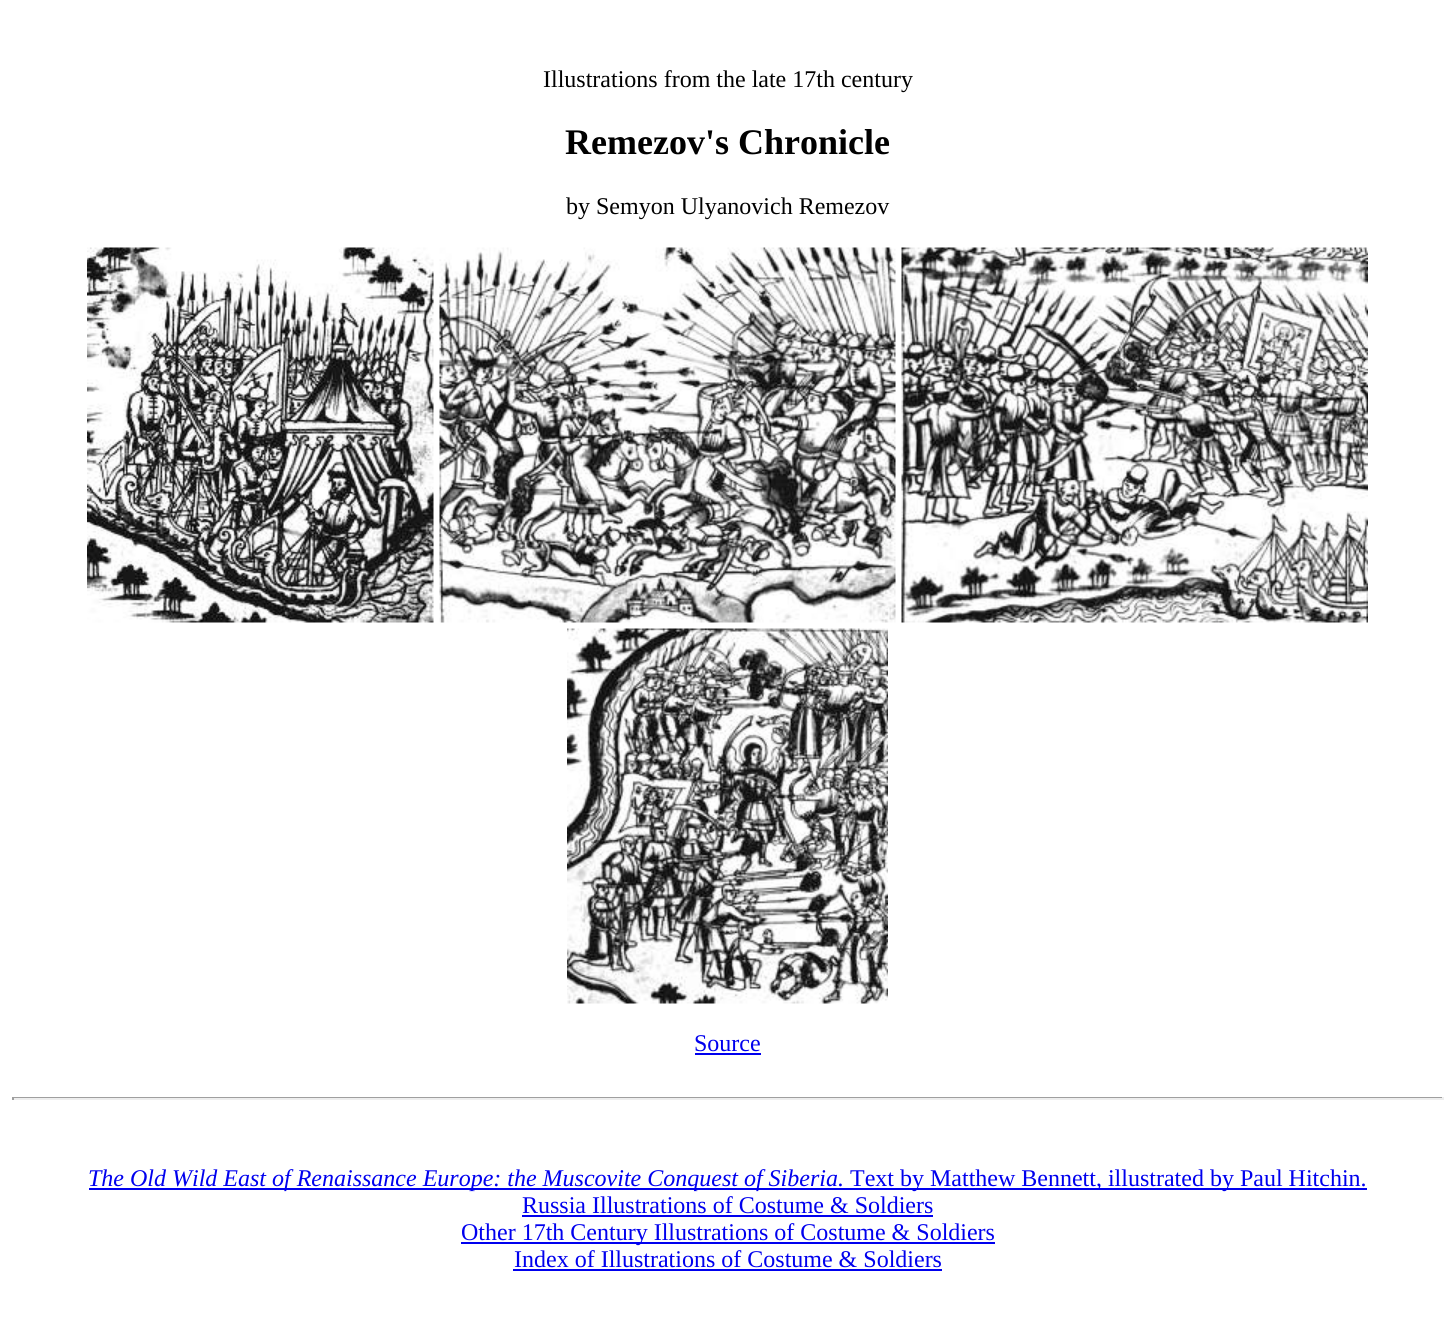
#include <cairo.h>
#include <math.h>
#include <stddef.h>


static void rgb(cairo_t *cr, int r, int g, int b)
{
	cairo_set_source_rgb(cr, r / 255.0, g / 255.0, b / 255.0);
}

static void face(cairo_t *cr, const char *family, double size, int italic, int bold)
{
	cairo_select_font_face(cr, family, italic ? CAIRO_FONT_SLANT_ITALIC : CAIRO_FONT_SLANT_NORMAL,
		bold ? CAIRO_FONT_WEIGHT_BOLD : CAIRO_FONT_WEIGHT_NORMAL);
	cairo_set_font_size(cr, size);
}

static void label(cairo_t *cr, double x, double y, const char *s)
{
	cairo_move_to(cr, x, y);
	cairo_show_text(cr, s);
}

static void rect(cairo_t *cr, double x, double y, double w, double h)
{
	cairo_rectangle(cr, x, y, w, h);
	cairo_fill(cr);
}

static void image(cairo_t *cr, const char *path, double x, double y, double w, double h)
{
	cairo_surface_t *image = cairo_image_surface_create_from_png(path);
	cairo_save(cr);
	cairo_set_source_surface(cr, image, x, y);
	cairo_rectangle(cr, x, y, w, h);
	cairo_fill(cr);
	cairo_restore(cr);
	cairo_surface_destroy(image);
}

static void draw(cairo_t *cr) {
	rgb(cr, 255, 255, 255);
	cairo_paint(cr);
	face(cr, "Liberation Serif", 24, 0, 0);
	rgb(cr, 0, 0, 0);
	label(cr, 543, 87, "Illustrations from the late 17th century");
	face(cr, "Liberation Serif", 36, 0, 1);
	label(cr, 565, 154, "Remezov's Chronicle");
	face(cr, "Liberation Serif", 24, 0, 0);
	label(cr, 566, 214, "by Semyon Ulyanovich Remezov");
	image(cr, "image0.png", 87, 247, 347, 376);
	image(cr, "image1.png", 439, 247, 457, 376);
	image(cr, "image2.png", 901, 247, 467, 376);
	image(cr, "image3.png", 567, 628, 321, 376);
	rgb(cr, 0, 0, 238);
	label(cr, 694, 1051, "Source");
	rect(cr, 695, 1053, 66, 2);
	rgb(cr, 159, 159, 159);
	rect(cr, 12, 1097, 1431, 1);
	rgb(cr, 238, 238, 238);
	rect(cr, 1442, 1097, 2, 3);
	rect(cr, 12, 1098, 1431, 2);
	rgb(cr, 159, 159, 159);
	rect(cr, 12, 1097, 2, 3);
	rgb(cr, 0, 0, 238);
	rect(cr, 89, 1188, 1278, 2);
	face(cr, "Liberation Serif", 24, 1, 0);
	label(cr, 88, 1186, "The Old Wild East of Renaissance Europe: the Muscovite Conquest of Siberia.");
	face(cr, "Liberation Serif", 24, 0, 0);
	label(cr, 850, 1186, "Text by Matthew Bennett, illustrated by Paul Hitchin.");
	label(cr, 522, 1213, "Russia Illustrations of Costume & Soldiers");
	rect(cr, 522, 1215, 411, 2);
	rect(cr, 461, 1242, 534, 2);
	label(cr, 461, 1240, "Other 17th Century Illustrations of Costume & Soldiers");
	label(cr, 514, 1267, "Index of Illustrations of Costume & Soldiers");
	rect(cr, 513, 1269, 429, 2);
}

int main(void) {
	cairo_surface_t *surface = cairo_image_surface_create(CAIRO_FORMAT_RGB24, 1454, 1330);
	cairo_t *cr = cairo_create(surface);
	cairo_font_options_t *options = cairo_font_options_create();
	cairo_font_options_set_hint_metrics(options, CAIRO_HINT_METRICS_OFF);
	cairo_font_options_set_hint_style(options, CAIRO_HINT_STYLE_NONE);
	cairo_set_font_options(cr, options);
	cairo_set_miter_limit(cr, 4);
	draw(cr);
	cairo_surface_write_to_png(surface, "render.png");
	cairo_font_options_destroy(options);
	cairo_destroy(cr);
	cairo_surface_destroy(surface);
	return 0;
}
